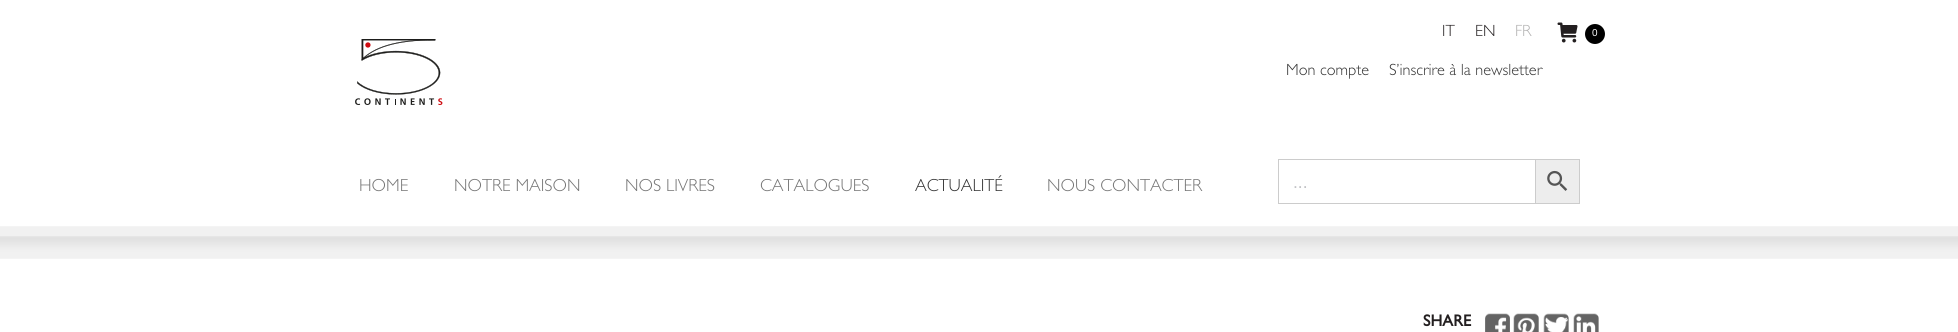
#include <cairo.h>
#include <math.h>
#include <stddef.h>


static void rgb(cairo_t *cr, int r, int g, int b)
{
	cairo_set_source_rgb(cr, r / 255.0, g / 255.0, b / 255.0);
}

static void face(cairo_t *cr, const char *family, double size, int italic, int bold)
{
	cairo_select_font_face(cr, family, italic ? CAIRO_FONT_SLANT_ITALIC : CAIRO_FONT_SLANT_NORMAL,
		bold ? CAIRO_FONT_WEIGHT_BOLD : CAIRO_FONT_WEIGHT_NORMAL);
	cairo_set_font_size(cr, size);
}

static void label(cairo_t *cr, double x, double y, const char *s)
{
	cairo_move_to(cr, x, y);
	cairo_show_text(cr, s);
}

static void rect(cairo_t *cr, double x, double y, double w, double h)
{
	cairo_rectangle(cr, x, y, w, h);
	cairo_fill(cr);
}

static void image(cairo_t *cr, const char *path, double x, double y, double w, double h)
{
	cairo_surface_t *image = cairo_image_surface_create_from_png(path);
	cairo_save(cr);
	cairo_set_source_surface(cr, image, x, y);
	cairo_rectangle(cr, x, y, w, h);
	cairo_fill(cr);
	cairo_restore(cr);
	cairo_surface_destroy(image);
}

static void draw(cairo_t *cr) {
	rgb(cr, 255, 255, 255);
	cairo_paint(cr);
	face(cr, "Gill Sans Light", 16.25, 0, 0);
	rgb(cr, 35, 31, 32);
	label(cr, 1442, 36, "IT");
	label(cr, 1475, 36, "EN");
	rgb(cr, 178, 177, 177);
	label(cr, 1515, 36, "FR");
	image(cr, "image0.png", 1557, 22, 21, 21);
	rgb(cr, 0, 0, 0);
	cairo_arc(cr, 1595, 34, 10, 0, 2 * M_PI);
	cairo_fill(cr);
	face(cr, "Liberation Sans", 10, 0, 0);
	rgb(cr, 255, 255, 255);
	label(cr, 1592, 36, "0");
	image(cr, "image1.png", 355, 39, 88, 66);
	face(cr, "Gill Sans Light", 16.25, 0, 0);
	rgb(cr, 51, 51, 51);
	label(cr, 1286, 75, "Mon compte");
	label(cr, 1389, 75, "S’inscrire à la newsletter");
	face(cr, "Gill Sans Light", 17.5, 0, 0);
	rgb(cr, 117, 117, 117);
	label(cr, 359, 191, "HOME");
	label(cr, 454, 191, "NOTRE MAISON");
	label(cr, 625, 191, "NOS LIVRES");
	label(cr, 760, 191, "CATALOGUES");
	rgb(cr, 51, 51, 51);
	label(cr, 915, 191, "ACTUALITÉ");
	rgb(cr, 117, 117, 117);
	label(cr, 1047, 191, "NOUS CONTACTER");
	rgb(cr, 204, 204, 204);
	rect(cr, 1278, 159, 257, 1);
	rect(cr, 1278, 203, 257, 1);
	rect(cr, 1278, 159, 1, 45);
	face(cr, "Liberation Sans", 17.5, 0, 0);
	rgb(cr, 194, 195, 198);
	label(cr, 1293, 188, "...");
	rgb(cr, 237, 237, 237);
	cairo_rectangle(cr, 1535.5, 159.5, 44, 44);
	cairo_fill_preserve(cr);
	rgb(cr, 204, 204, 204);
	cairo_set_line_width(cr, 1);
	cairo_stroke(cr);
	image(cr, "image2.png", 1547, 170, 21, 21);
	image(cr, "image3.png", 0, 226, 1958, 33);
	face(cr, "Gill Sans", 16.25, 0, 1);
	rgb(cr, 35, 31, 32);
	label(cr, 1423, 326, "SHARE");
	image(cr, "image4.png", 1485, 313, 25, 19);
	image(cr, "image5.png", 1513, 313, 26, 19);
	image(cr, "image6.png", 1543, 313, 26, 19);
	image(cr, "image7.png", 1573, 313, 26, 19);
}

int main(void) {
	cairo_surface_t *surface = cairo_image_surface_create(CAIRO_FORMAT_RGB24, 1958, 332);
	cairo_t *cr = cairo_create(surface);
	cairo_font_options_t *options = cairo_font_options_create();
	cairo_font_options_set_hint_metrics(options, CAIRO_HINT_METRICS_OFF);
	cairo_font_options_set_hint_style(options, CAIRO_HINT_STYLE_NONE);
	cairo_set_font_options(cr, options);
	cairo_set_miter_limit(cr, 4);
	draw(cr);
	cairo_surface_write_to_png(surface, "render.png");
	cairo_font_options_destroy(options);
	cairo_destroy(cr);
	cairo_surface_destroy(surface);
	return 0;
}
